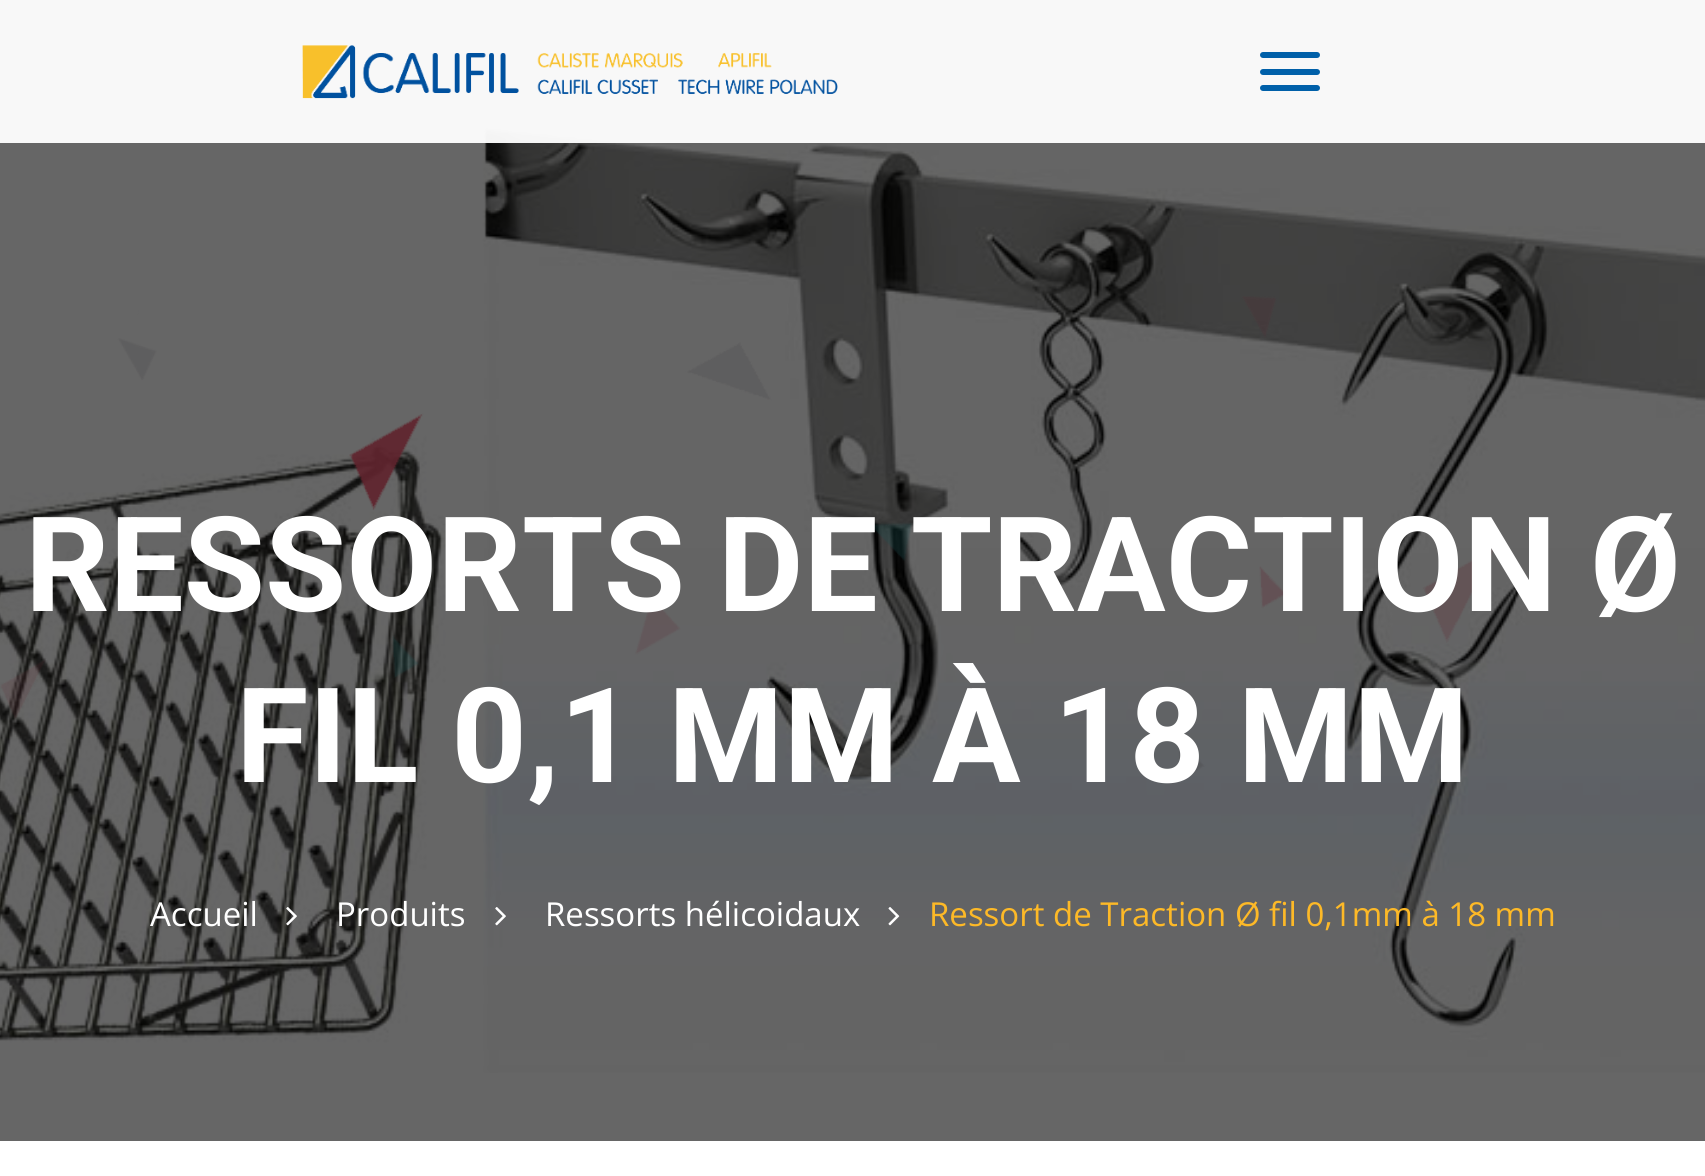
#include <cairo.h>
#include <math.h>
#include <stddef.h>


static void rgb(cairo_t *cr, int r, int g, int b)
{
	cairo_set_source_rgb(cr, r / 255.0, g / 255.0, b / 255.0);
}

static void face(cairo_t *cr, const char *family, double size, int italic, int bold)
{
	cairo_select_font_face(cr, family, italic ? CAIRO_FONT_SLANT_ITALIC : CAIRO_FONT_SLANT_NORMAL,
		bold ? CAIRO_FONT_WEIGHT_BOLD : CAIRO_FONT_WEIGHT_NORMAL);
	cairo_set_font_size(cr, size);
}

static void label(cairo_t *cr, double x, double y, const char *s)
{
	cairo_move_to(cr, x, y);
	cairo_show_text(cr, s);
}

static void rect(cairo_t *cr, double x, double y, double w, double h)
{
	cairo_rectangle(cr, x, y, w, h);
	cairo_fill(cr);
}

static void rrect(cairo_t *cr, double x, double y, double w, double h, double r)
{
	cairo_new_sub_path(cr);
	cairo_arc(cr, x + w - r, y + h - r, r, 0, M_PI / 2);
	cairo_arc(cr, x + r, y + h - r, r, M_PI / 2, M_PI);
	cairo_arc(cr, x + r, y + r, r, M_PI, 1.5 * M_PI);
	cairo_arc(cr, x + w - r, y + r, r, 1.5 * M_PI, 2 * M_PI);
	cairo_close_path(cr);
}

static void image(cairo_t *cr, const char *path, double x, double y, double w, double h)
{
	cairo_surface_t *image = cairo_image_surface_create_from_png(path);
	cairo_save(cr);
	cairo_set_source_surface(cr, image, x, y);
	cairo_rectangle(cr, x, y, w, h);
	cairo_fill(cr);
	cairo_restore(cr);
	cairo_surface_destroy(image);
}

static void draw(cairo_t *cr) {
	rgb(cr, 255, 255, 255);
	cairo_paint(cr);
	rgb(cr, 102, 102, 102);
	rect(cr, 0, 0, 1705, 1141);
	image(cr, "image1.png", 0, 93, 1705, 980);
	cairo_set_source_rgba(cr, 1, 1, 1, 0.95);
	rect(cr, 0, 0, 1705, 143);
	image(cr, "image0.png", 302, 45, 536, 54);
	rgb(cr, 0, 96, 169);
	rrect(cr, 1260, 52, 60, 6, 3);
	cairo_fill(cr);
	rrect(cr, 1260, 69, 60, 6, 3);
	cairo_fill(cr);
	rrect(cr, 1260, 85, 60, 6, 3);
	cairo_fill(cr);
	image(cr, "image2.png", 0, 296, 1496, 484);
	face(cr, "Roboto", 132, 0, 1);
	rgb(cr, 255, 255, 255);
	label(cr, 25, 611, "RESSORTS DE TRACTION Ø");
	label(cr, 236, 782, "FIL 0,1 MM À 18 MM");
	face(cr, "Open Sans", 33, 0, 0);
	label(cr, 150, 926, "Accueil");
	image(cr, "image3.png", 286, 907, 11, 19);
	label(cr, 336, 926, "Produits");
	image(cr, "image4.png", 495, 907, 11, 19);
	label(cr, 545, 926, "Ressorts hélicoidaux");
	image(cr, "image5.png", 888, 907, 12, 19);
	rgb(cr, 253, 185, 39);
	label(cr, 929, 926, "Ressort de Traction Ø fil 0,1mm à 18 mm");
}

int main(void) {
	cairo_surface_t *surface = cairo_image_surface_create(CAIRO_FORMAT_RGB24, 1705, 1176);
	cairo_t *cr = cairo_create(surface);
	cairo_font_options_t *options = cairo_font_options_create();
	cairo_font_options_set_hint_metrics(options, CAIRO_HINT_METRICS_OFF);
	cairo_font_options_set_hint_style(options, CAIRO_HINT_STYLE_NONE);
	cairo_set_font_options(cr, options);
	cairo_set_miter_limit(cr, 4);
	draw(cr);
	cairo_surface_write_to_png(surface, "render.png");
	cairo_font_options_destroy(options);
	cairo_destroy(cr);
	cairo_surface_destroy(surface);
	return 0;
}
